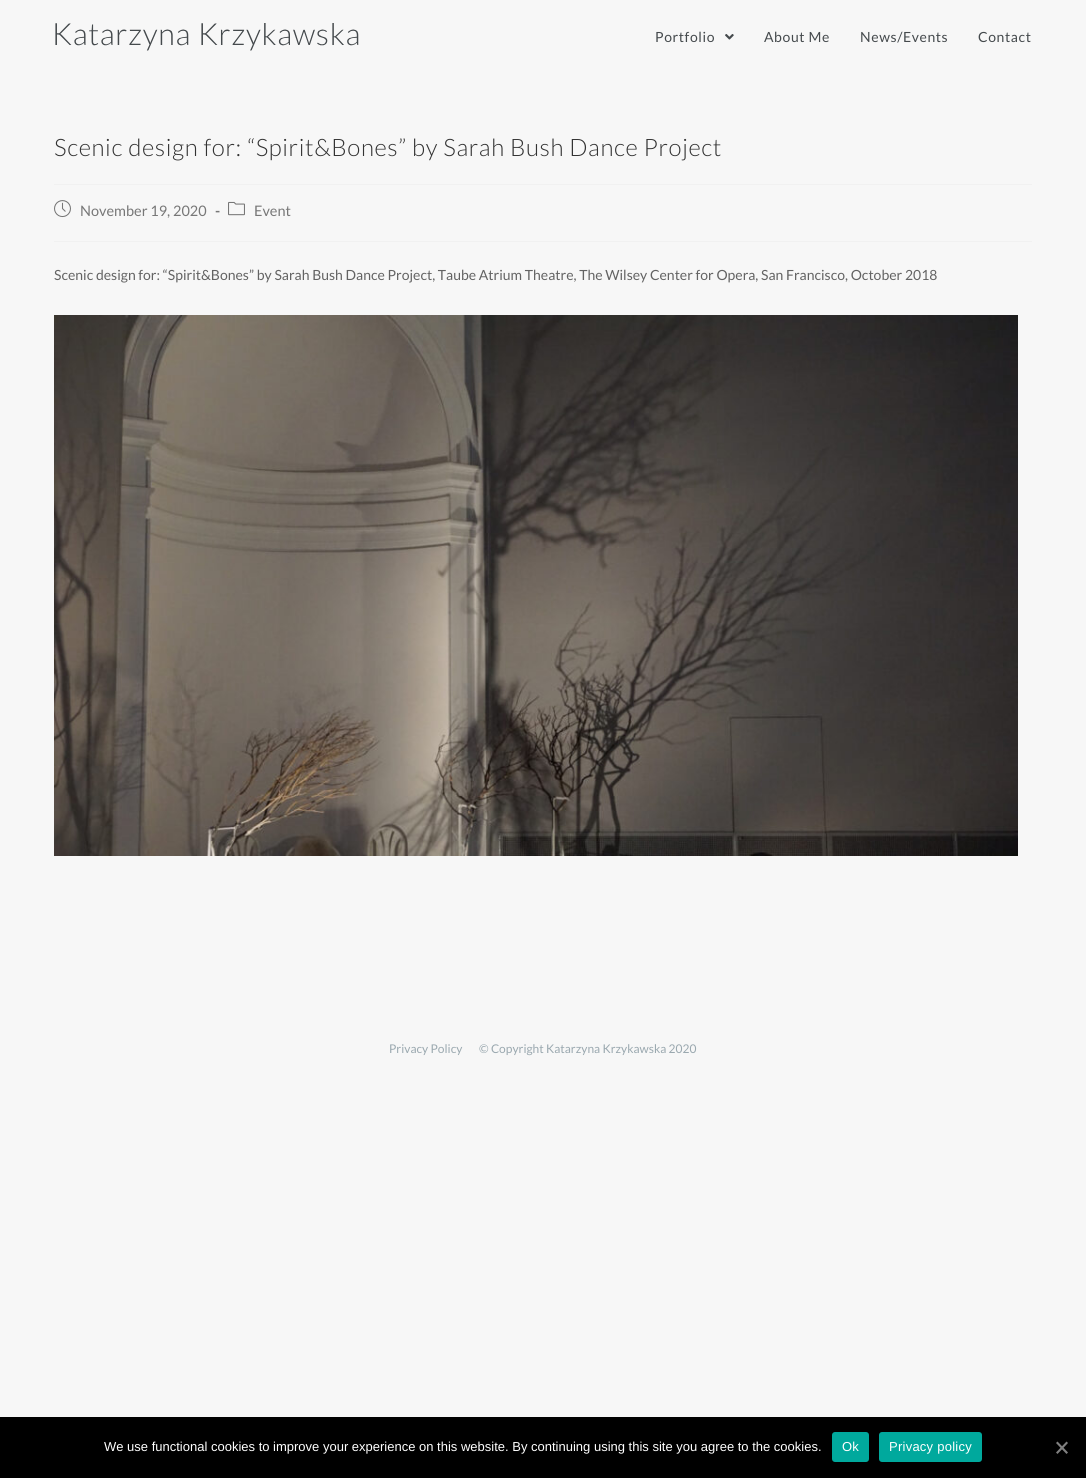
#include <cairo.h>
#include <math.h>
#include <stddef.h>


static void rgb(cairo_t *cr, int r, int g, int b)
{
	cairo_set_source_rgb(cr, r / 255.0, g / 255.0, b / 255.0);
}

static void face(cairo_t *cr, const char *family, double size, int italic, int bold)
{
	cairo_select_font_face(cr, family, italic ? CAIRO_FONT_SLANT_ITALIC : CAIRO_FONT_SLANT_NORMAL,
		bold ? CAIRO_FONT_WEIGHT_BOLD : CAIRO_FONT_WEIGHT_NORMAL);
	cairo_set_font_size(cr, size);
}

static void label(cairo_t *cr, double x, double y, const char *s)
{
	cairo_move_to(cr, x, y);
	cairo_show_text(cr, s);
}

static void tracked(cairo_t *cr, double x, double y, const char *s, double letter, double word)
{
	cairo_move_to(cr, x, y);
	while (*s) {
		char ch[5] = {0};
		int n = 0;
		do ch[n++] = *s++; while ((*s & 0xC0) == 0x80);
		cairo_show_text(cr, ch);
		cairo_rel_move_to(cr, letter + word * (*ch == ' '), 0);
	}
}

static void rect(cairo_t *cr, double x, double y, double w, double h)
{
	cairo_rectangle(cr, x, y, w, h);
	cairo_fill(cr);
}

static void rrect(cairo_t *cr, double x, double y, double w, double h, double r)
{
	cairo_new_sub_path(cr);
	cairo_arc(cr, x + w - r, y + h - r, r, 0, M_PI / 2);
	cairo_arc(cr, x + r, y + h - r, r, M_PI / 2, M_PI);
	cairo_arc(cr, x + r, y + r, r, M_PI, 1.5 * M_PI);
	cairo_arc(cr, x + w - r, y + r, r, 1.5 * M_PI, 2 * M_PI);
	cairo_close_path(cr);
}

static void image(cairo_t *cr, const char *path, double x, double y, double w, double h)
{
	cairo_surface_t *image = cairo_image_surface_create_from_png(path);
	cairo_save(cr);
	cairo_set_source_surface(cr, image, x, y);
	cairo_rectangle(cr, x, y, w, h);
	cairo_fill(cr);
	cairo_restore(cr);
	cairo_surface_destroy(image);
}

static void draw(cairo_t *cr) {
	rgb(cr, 247, 247, 247);
	cairo_paint(cr);
	image(cr, "image0.png", 55, 23, 304, 28);
	face(cr, "Lato", 14, 0, 0);
	rgb(cr, 69, 74, 77);
	tracked(cr, 655, 42, "Portfolio", 0.6, 0);
	image(cr, "image1.png", 725, 34, 9, 6);
	tracked(cr, 764, 42, "About Me", 0.6, 0);
	tracked(cr, 860, 42, "News/Events", 0.6, 0);
	tracked(cr, 978, 42, "Contact", 0.6, 0);
	rgb(cr, 241, 241, 241);
	rect(cr, 54, 184, 978, 1);
	face(cr, "Lato Light", 24, 0, 0);
	rgb(cr, 51, 51, 51);
	tracked(cr, 54, 156, "Scenic design for: “Spirit&Bones” by Sarah Bush Dance Project", 0.6, 0);
	rgb(cr, 241, 241, 241);
	rect(cr, 54, 241, 978, 1);
	image(cr, "image2.png", 54, 200, 17, 18);
	face(cr, "Lato", 14.5, 0, 0);
	rgb(cr, 119, 119, 119);
	label(cr, 80, 216, "November 19, 2020");
	face(cr, "Lato", 14.5, 0, 1);
	label(cr, 215, 216, "-");
	image(cr, "image3.png", 228, 201, 17, 15);
	face(cr, "Lato", 14.5, 0, 0);
	label(cr, 254, 216, "Event");
	face(cr, "Lato", 14, 0, 0);
	rgb(cr, 99, 99, 99);
	label(cr, 54, 280, "Scenic design for: “Spirit&Bones” by Sarah Bush Dance Project, Taube Atrium Theatre, The Wilsey Center for Opera, San Francisco, October 2018");
	image(cr, "image4.png", 54, 315, 964, 541);
	face(cr, "Lato", 12, 0, 0);
	rgb(cr, 154, 168, 175);
	label(cr, 389, 1053, "Privacy Policy");
	label(cr, 479, 1053, "© Copyright Katarzyna Krzykawska 2020");
	rgb(cr, 0, 0, 0);
	rect(cr, 0, 1417, 1086, 61);
	face(cr, "Liberation Sans", 13, 0, 0);
	rgb(cr, 255, 255, 255);
	label(cr, 104, 1451, "We use functional cookies to improve your experience on this website. By continuing using this site you agree to the cookies.");
	rgb(cr, 0, 169, 157);
	rrect(cr, 832, 1432, 37, 30, 3);
	cairo_fill(cr);
	rgb(cr, 255, 255, 255);
	tracked(cr, 842, 1451, "Ok", 0.25, 0);
	rgb(cr, 0, 169, 157);
	rrect(cr, 879, 1432, 103, 30, 3);
	cairo_fill(cr);
	rgb(cr, 255, 255, 255);
	tracked(cr, 889, 1451, "Privacy policy", 0.25, 0);
	rgb(cr, 128, 128, 128);
	cairo_new_path(cr);
	cairo_move_to(cr, 1066.5, 1441.5);
	cairo_line_to(cr, 1068, 1443);
	cairo_line_to(cr, 1057.5, 1454);
	cairo_line_to(cr, 1056, 1452.5);
	cairo_close_path(cr);
	cairo_fill(cr);
	cairo_new_path(cr);
	cairo_move_to(cr, 1056, 1443);
	cairo_line_to(cr, 1057.5, 1441.5);
	cairo_line_to(cr, 1068, 1452.5);
	cairo_line_to(cr, 1066.5, 1454);
	cairo_close_path(cr);
	cairo_fill(cr);
}

int main(void) {
	cairo_surface_t *surface = cairo_image_surface_create(CAIRO_FORMAT_RGB24, 1086, 1478);
	cairo_t *cr = cairo_create(surface);
	cairo_font_options_t *options = cairo_font_options_create();
	cairo_font_options_set_hint_metrics(options, CAIRO_HINT_METRICS_OFF);
	cairo_font_options_set_hint_style(options, CAIRO_HINT_STYLE_NONE);
	cairo_set_font_options(cr, options);
	cairo_set_miter_limit(cr, 4);
	draw(cr);
	cairo_surface_write_to_png(surface, "render.png");
	cairo_font_options_destroy(options);
	cairo_destroy(cr);
	cairo_surface_destroy(surface);
	return 0;
}
